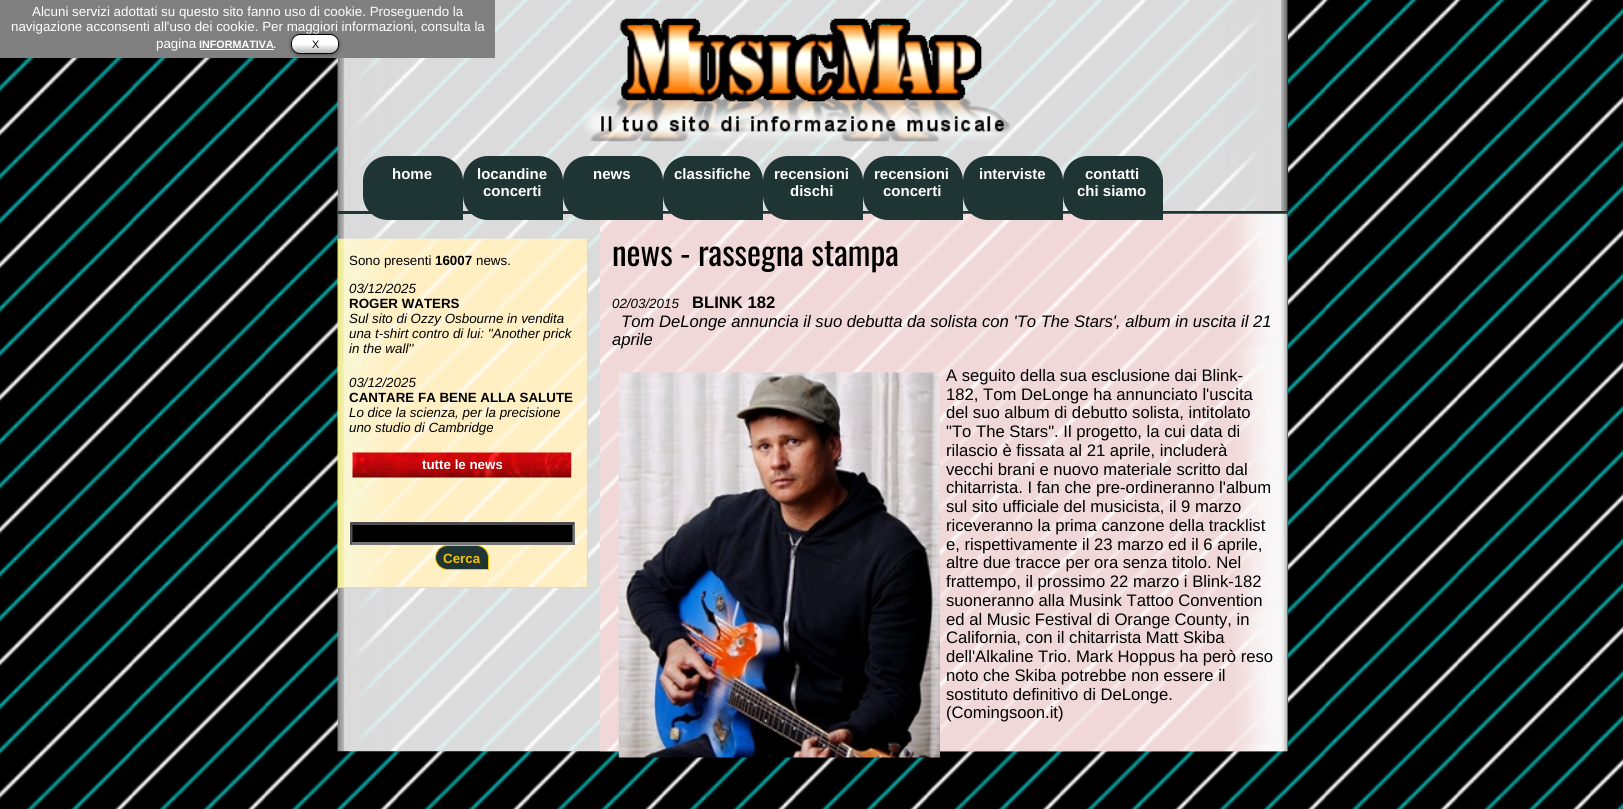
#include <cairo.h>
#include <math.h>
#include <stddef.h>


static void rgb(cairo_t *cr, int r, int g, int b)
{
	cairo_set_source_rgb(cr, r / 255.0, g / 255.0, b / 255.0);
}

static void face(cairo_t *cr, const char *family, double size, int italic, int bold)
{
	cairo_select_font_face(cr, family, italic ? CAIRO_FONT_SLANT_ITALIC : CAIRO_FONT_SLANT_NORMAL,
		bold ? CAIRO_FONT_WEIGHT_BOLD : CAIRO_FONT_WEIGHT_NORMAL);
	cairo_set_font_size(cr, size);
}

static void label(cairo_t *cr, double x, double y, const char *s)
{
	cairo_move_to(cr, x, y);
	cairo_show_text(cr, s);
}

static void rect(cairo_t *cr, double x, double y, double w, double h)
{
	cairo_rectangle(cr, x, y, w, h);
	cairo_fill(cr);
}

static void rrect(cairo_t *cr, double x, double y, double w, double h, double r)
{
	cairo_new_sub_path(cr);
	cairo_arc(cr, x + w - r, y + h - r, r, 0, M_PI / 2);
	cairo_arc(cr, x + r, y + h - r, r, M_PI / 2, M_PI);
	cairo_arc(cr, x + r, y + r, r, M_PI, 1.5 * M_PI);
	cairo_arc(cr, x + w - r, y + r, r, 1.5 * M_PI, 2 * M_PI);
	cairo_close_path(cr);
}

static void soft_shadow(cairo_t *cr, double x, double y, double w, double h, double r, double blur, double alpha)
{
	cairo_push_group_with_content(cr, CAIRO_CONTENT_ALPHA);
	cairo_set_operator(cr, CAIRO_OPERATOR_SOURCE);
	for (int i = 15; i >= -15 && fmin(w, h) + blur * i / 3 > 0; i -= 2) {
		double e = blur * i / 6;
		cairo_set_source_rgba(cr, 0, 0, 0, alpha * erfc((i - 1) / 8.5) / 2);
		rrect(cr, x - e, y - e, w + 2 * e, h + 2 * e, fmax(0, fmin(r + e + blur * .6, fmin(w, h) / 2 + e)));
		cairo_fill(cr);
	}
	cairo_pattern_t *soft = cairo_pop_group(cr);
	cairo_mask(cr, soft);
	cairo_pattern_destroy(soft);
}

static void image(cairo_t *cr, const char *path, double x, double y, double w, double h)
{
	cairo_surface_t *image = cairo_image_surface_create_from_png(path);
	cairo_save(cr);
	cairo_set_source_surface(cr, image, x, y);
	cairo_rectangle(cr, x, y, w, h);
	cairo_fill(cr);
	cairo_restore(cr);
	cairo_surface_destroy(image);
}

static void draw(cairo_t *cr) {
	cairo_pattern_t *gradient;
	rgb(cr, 255, 255, 255);
	cairo_paint(cr);
	image(cr, "image0.png", 0, 0, 1623, 809);
	rgb(cr, 0, 0, 0);
	rect(cr, 338, 0, 950, 751);
	image(cr, "image1.png", 337, 0, 951, 752);
	rgb(cr, 31, 53, 52);
	rect(cr, 338, 211, 950, 3);
	rgb(cr, 128, 128, 128);
	rect(cr, 0, 0, 495, 58);
	face(cr, "Liberation Sans", 13.35, 0, 0);
	rgb(cr, 255, 255, 255);
	label(cr, 32, 16, "Alcuni servizi adottati su questo sito fanno uso di cookie. Proseguendo la");
	label(cr, 11, 31, "navigazione acconsenti all'uso dei cookie. Per maggiori informazioni, consulta la");
	label(cr, 156, 48, "pagina");
	face(cr, "Liberation Sans", 10.75, 0, 1);
	label(cr, 199, 48, "INFORMATIVA");
	rect(cr, 200, 49, 74, 1);
	face(cr, "Liberation Sans", 13.35, 0, 0);
	label(cr, 273, 48, ".");
	rgb(cr, 0, 0, 0);
	soft_shadow(cr, 291, 35, 48, 20, 9, 2, 0.5);
	cairo_save(cr);
	rrect(cr, 291, 34, 48, 20, 9);
	cairo_clip(cr);
	gradient = cairo_pattern_create_linear(293, 35, 293, 53);
	cairo_pattern_add_color_stop_rgba(gradient, 0, 1, 1, 1, 1);
	cairo_pattern_add_color_stop_rgba(gradient, 0.5, 1, 1, 1, 1);
	cairo_pattern_add_color_stop_rgba(gradient, 1, 0.71, 0.71, 0.71, 1);
	cairo_set_source(cr, gradient);
	cairo_pattern_destroy(gradient);
	rect(cr, 291, 35, 48, 18);
	cairo_restore(cr);
	rrect(cr, 291.5, 34.5, 47, 19, 8.5);
	rgb(cr, 0, 0, 0);
	cairo_set_line_width(cr, 1);
	cairo_stroke(cr);
	face(cr, "Liberation Sans", 10.75, 0, 0);
	label(cr, 312, 48, "X");
	rgb(cr, 31, 53, 52);
	cairo_new_path(cr);
	cairo_move_to(cr, 388, 156);
	cairo_line_to(cr, 438, 156);
	cairo_curve_to(cr, 452, 156, 463, 167, 463, 181);
	cairo_line_to(cr, 463, 220);
	cairo_line_to(cr, 388, 220);
	cairo_curve_to(cr, 374, 220, 363, 209, 363, 195);
	cairo_line_to(cr, 363, 181);
	cairo_curve_to(cr, 363, 167, 374, 156, 388, 156);
	cairo_close_path(cr);
	cairo_fill(cr);
	face(cr, "Liberation Sans", 15, 0, 1);
	rgb(cr, 255, 255, 255);
	label(cr, 392, 179, "home");
	rgb(cr, 31, 53, 52);
	cairo_new_path(cr);
	cairo_move_to(cr, 488, 156);
	cairo_line_to(cr, 538, 156);
	cairo_curve_to(cr, 552, 156, 563, 167, 563, 181);
	cairo_line_to(cr, 563, 220);
	cairo_line_to(cr, 488, 220);
	cairo_curve_to(cr, 474, 220, 463, 209, 463, 195);
	cairo_line_to(cr, 463, 181);
	cairo_curve_to(cr, 463, 167, 474, 156, 488, 156);
	cairo_close_path(cr);
	cairo_fill(cr);
	rgb(cr, 255, 255, 255);
	label(cr, 477, 179, "locandine");
	label(cr, 483, 196, "concerti");
	image(cr, "image5.png", 600, 213, 688, 539);
	rgb(cr, 31, 53, 52);
	cairo_new_path(cr);
	cairo_move_to(cr, 588, 156);
	cairo_line_to(cr, 638, 156);
	cairo_curve_to(cr, 652, 156, 663, 167, 663, 181);
	cairo_line_to(cr, 663, 220);
	cairo_line_to(cr, 588, 220);
	cairo_curve_to(cr, 574, 220, 563, 209, 563, 195);
	cairo_line_to(cr, 563, 181);
	cairo_curve_to(cr, 563, 167, 574, 156, 588, 156);
	cairo_close_path(cr);
	cairo_fill(cr);
	rgb(cr, 255, 255, 255);
	label(cr, 593, 179, "news");
	rgb(cr, 31, 53, 52);
	cairo_new_path(cr);
	cairo_move_to(cr, 688, 156);
	cairo_line_to(cr, 738, 156);
	cairo_curve_to(cr, 752, 156, 763, 167, 763, 181);
	cairo_line_to(cr, 763, 220);
	cairo_line_to(cr, 688, 220);
	cairo_curve_to(cr, 674, 220, 663, 209, 663, 195);
	cairo_line_to(cr, 663, 181);
	cairo_curve_to(cr, 663, 167, 674, 156, 688, 156);
	cairo_close_path(cr);
	cairo_fill(cr);
	rgb(cr, 255, 255, 255);
	label(cr, 674, 179, "classifiche");
	rgb(cr, 31, 53, 52);
	cairo_new_path(cr);
	cairo_move_to(cr, 788, 156);
	cairo_line_to(cr, 838, 156);
	cairo_curve_to(cr, 852, 156, 863, 167, 863, 181);
	cairo_line_to(cr, 863, 220);
	cairo_line_to(cr, 788, 220);
	cairo_curve_to(cr, 774, 220, 763, 209, 763, 195);
	cairo_line_to(cr, 763, 181);
	cairo_curve_to(cr, 763, 167, 774, 156, 788, 156);
	cairo_close_path(cr);
	cairo_fill(cr);
	rgb(cr, 255, 255, 255);
	label(cr, 774, 179, "recensioni");
	label(cr, 790, 196, "dischi");
	rgb(cr, 31, 53, 52);
	cairo_new_path(cr);
	cairo_move_to(cr, 888, 156);
	cairo_line_to(cr, 938, 156);
	cairo_curve_to(cr, 952, 156, 963, 167, 963, 181);
	cairo_line_to(cr, 963, 220);
	cairo_line_to(cr, 888, 220);
	cairo_curve_to(cr, 874, 220, 863, 209, 863, 195);
	cairo_line_to(cr, 863, 181);
	cairo_curve_to(cr, 863, 167, 874, 156, 888, 156);
	cairo_close_path(cr);
	cairo_fill(cr);
	rgb(cr, 255, 255, 255);
	label(cr, 874, 179, "recensioni");
	label(cr, 883, 196, "concerti");
	rgb(cr, 31, 53, 52);
	cairo_new_path(cr);
	cairo_move_to(cr, 988, 156);
	cairo_line_to(cr, 1038, 156);
	cairo_curve_to(cr, 1052, 156, 1063, 167, 1063, 181);
	cairo_line_to(cr, 1063, 220);
	cairo_line_to(cr, 988, 220);
	cairo_curve_to(cr, 974, 220, 963, 209, 963, 195);
	cairo_line_to(cr, 963, 181);
	cairo_curve_to(cr, 963, 167, 974, 156, 988, 156);
	cairo_close_path(cr);
	cairo_fill(cr);
	rgb(cr, 255, 255, 255);
	label(cr, 979, 179, "interviste");
	rgb(cr, 31, 53, 52);
	cairo_new_path(cr);
	cairo_move_to(cr, 1088, 156);
	cairo_line_to(cr, 1138, 156);
	cairo_curve_to(cr, 1152, 156, 1163, 167, 1163, 181);
	cairo_line_to(cr, 1163, 220);
	cairo_line_to(cr, 1088, 220);
	cairo_curve_to(cr, 1074, 220, 1063, 209, 1063, 195);
	cairo_line_to(cr, 1063, 181);
	cairo_curve_to(cr, 1063, 167, 1074, 156, 1088, 156);
	cairo_close_path(cr);
	cairo_fill(cr);
	rgb(cr, 255, 255, 255);
	label(cr, 1085, 179, "contatti");
	label(cr, 1077, 196, "chi siamo");
	image(cr, "image2.png", 583, 18, 428, 124);
	rgb(cr, 215, 213, 17);
	rect(cr, 338, 239, 250, 349);
	image(cr, "image3.png", 337, 238, 251, 350);
	face(cr, "Liberation Sans", 13.35, 0, 0);
	rgb(cr, 0, 0, 0);
	label(cr, 349, 265, "Sono presenti");
	face(cr, "Liberation Sans", 13.35, 0, 1);
	label(cr, 435, 265, "16007");
	face(cr, "Liberation Sans", 13.35, 0, 0);
	label(cr, 476, 265, "news.");
	face(cr, "Liberation Sans", 13.35, 1, 0);
	label(cr, 349, 293, "03/12/2025");
	face(cr, "Liberation Sans", 13.35, 0, 1);
	label(cr, 349, 308, "ROGER WATERS");
	face(cr, "Liberation Sans", 13.35, 1, 0);
	label(cr, 349, 323, "Sul sito di Ozzy Osbourne in vendita");
	label(cr, 349, 338, "una t-shirt contro di lui: ''Another prick");
	label(cr, 349, 353, "in the wall''");
	label(cr, 349, 387, "03/12/2025");
	face(cr, "Liberation Sans", 13.35, 0, 1);
	label(cr, 349, 402, "CANTARE FA BENE ALLA SALUTE");
	face(cr, "Liberation Sans", 13.35, 1, 0);
	label(cr, 349, 417, "Lo dice la scienza, per la precisione");
	label(cr, 349, 432, "uno studio di Cambridge");
	image(cr, "image4.png", 352, 452, 220, 26);
	face(cr, "Liberation Sans", 13.35, 0, 1);
	rgb(cr, 255, 255, 255);
	label(cr, 422, 469, "tutte le news");
	rgb(cr, 0, 0, 0);
	rect(cr, 350, 523, 225, 22);
	rgb(cr, 79, 79, 79);
	cairo_new_path(cr);
	cairo_move_to(cr, 350, 522);
	cairo_line_to(cr, 575, 522);
	cairo_line_to(cr, 572, 525);
	cairo_line_to(cr, 352, 525);
	cairo_close_path(cr);
	cairo_fill(cr);
	rgb(cr, 118, 118, 118);
	cairo_new_path(cr);
	cairo_move_to(cr, 575, 522.5);
	cairo_line_to(cr, 575, 545);
	cairo_line_to(cr, 572.5, 542.5);
	cairo_line_to(cr, 572.5, 525);
	cairo_close_path(cr);
	cairo_fill(cr);
	cairo_new_path(cr);
	cairo_move_to(cr, 575, 545);
	cairo_line_to(cr, 350, 545);
	cairo_line_to(cr, 352, 542);
	cairo_line_to(cr, 572, 542);
	cairo_close_path(cr);
	cairo_fill(cr);
	rgb(cr, 79, 79, 79);
	cairo_new_path(cr);
	cairo_move_to(cr, 350, 545);
	cairo_line_to(cr, 350, 522.5);
	cairo_line_to(cr, 352.5, 525);
	cairo_line_to(cr, 352.5, 542.5);
	cairo_close_path(cr);
	cairo_fill(cr);
	rgb(cr, 31, 53, 52);
	cairo_new_path(cr);
	cairo_move_to(cr, 447.5, 545.5);
	cairo_line_to(cr, 476.5, 545.5);
	cairo_curve_to(cr, 483, 545.5, 488.5, 551, 488.5, 557.5);
	cairo_line_to(cr, 488.5, 569.5);
	cairo_line_to(cr, 447.5, 569.5);
	cairo_curve_to(cr, 441, 569.5, 435.5, 564, 435.5, 557.5);
	cairo_curve_to(cr, 435.5, 551, 441, 545.5, 447.5, 545.5);
	cairo_close_path(cr);
	cairo_fill_preserve(cr);
	rgb(cr, 248, 195, 0);
	cairo_stroke(cr);
	label(cr, 443, 563, "Cerca");
	face(cr, "Oswald", 33.25, 0, 0);
	rgb(cr, 0, 0, 0);
	label(cr, 612, 266, "news - rassegna stampa");
	face(cr, "Liberation Sans", 13.35, 1, 0);
	label(cr, 612, 308, "02/03/2015");
	face(cr, "Liberation Sans", 16.65, 0, 1);
	label(cr, 692, 308, "BLINK 182");
	face(cr, "Liberation Sans", 16.65, 1, 0);
	label(cr, 621, 327, "Tom DeLonge annuncia il suo debutta da solista con 'To The Stars', album in uscita il 21");
	label(cr, 612, 345, "aprile");
	image(cr, "image6.png", 618, 372, 322, 386);
	face(cr, "Liberation Sans", 16.65, 0, 0);
	label(cr, 946, 381, "A seguito della sua esclusione dai Blink-");
	label(cr, 946, 400, "182, Tom DeLonge ha annunciato l'uscita");
	label(cr, 946, 418, "del suo album di debutto solista, intitolato");
	label(cr, 946, 437, "\"To The Stars\". Il progetto, la cui data di");
	label(cr, 946, 456, "rilascio è fissata al 21 aprile, includerà");
	label(cr, 946, 475, "vecchi brani e nuovo materiale scritto dal");
	label(cr, 946, 493, "chitarrista. I fan che pre-ordineranno l'album");
	label(cr, 946, 512, "sul sito ufficiale del musicista, il 9 marzo");
	label(cr, 946, 531, "riceveranno la prima canzone della tracklist");
	label(cr, 946, 550, "e, rispettivamente il 23 marzo ed il 6 aprile,");
	label(cr, 946, 568, "altre due tracce per ora senza titolo. Nel");
	label(cr, 946, 587, "frattempo, il prossimo 22 marzo i Blink-182");
	label(cr, 946, 606, "suoneranno alla Musink Tattoo Convention");
	label(cr, 946, 625, "ed al Music Festival di Orange County, in");
	label(cr, 946, 643, "California, con il chitarrista Matt Skiba");
	label(cr, 946, 662, "dell'Alkaline Trio. Mark Hoppus ha però reso");
	label(cr, 946, 681, "noto che Skiba potrebbe non essere il");
	label(cr, 946, 700, "sostituto definitivo di DeLonge.");
	label(cr, 946, 718, "(Comingsoon.it)");
}

int main(void) {
	cairo_surface_t *surface = cairo_image_surface_create(CAIRO_FORMAT_RGB24, 1623, 809);
	cairo_t *cr = cairo_create(surface);
	cairo_font_options_t *options = cairo_font_options_create();
	cairo_font_options_set_hint_metrics(options, CAIRO_HINT_METRICS_OFF);
	cairo_font_options_set_hint_style(options, CAIRO_HINT_STYLE_NONE);
	cairo_set_font_options(cr, options);
	cairo_set_miter_limit(cr, 4);
	draw(cr);
	cairo_surface_write_to_png(surface, "render.png");
	cairo_font_options_destroy(options);
	cairo_destroy(cr);
	cairo_surface_destroy(surface);
	return 0;
}
